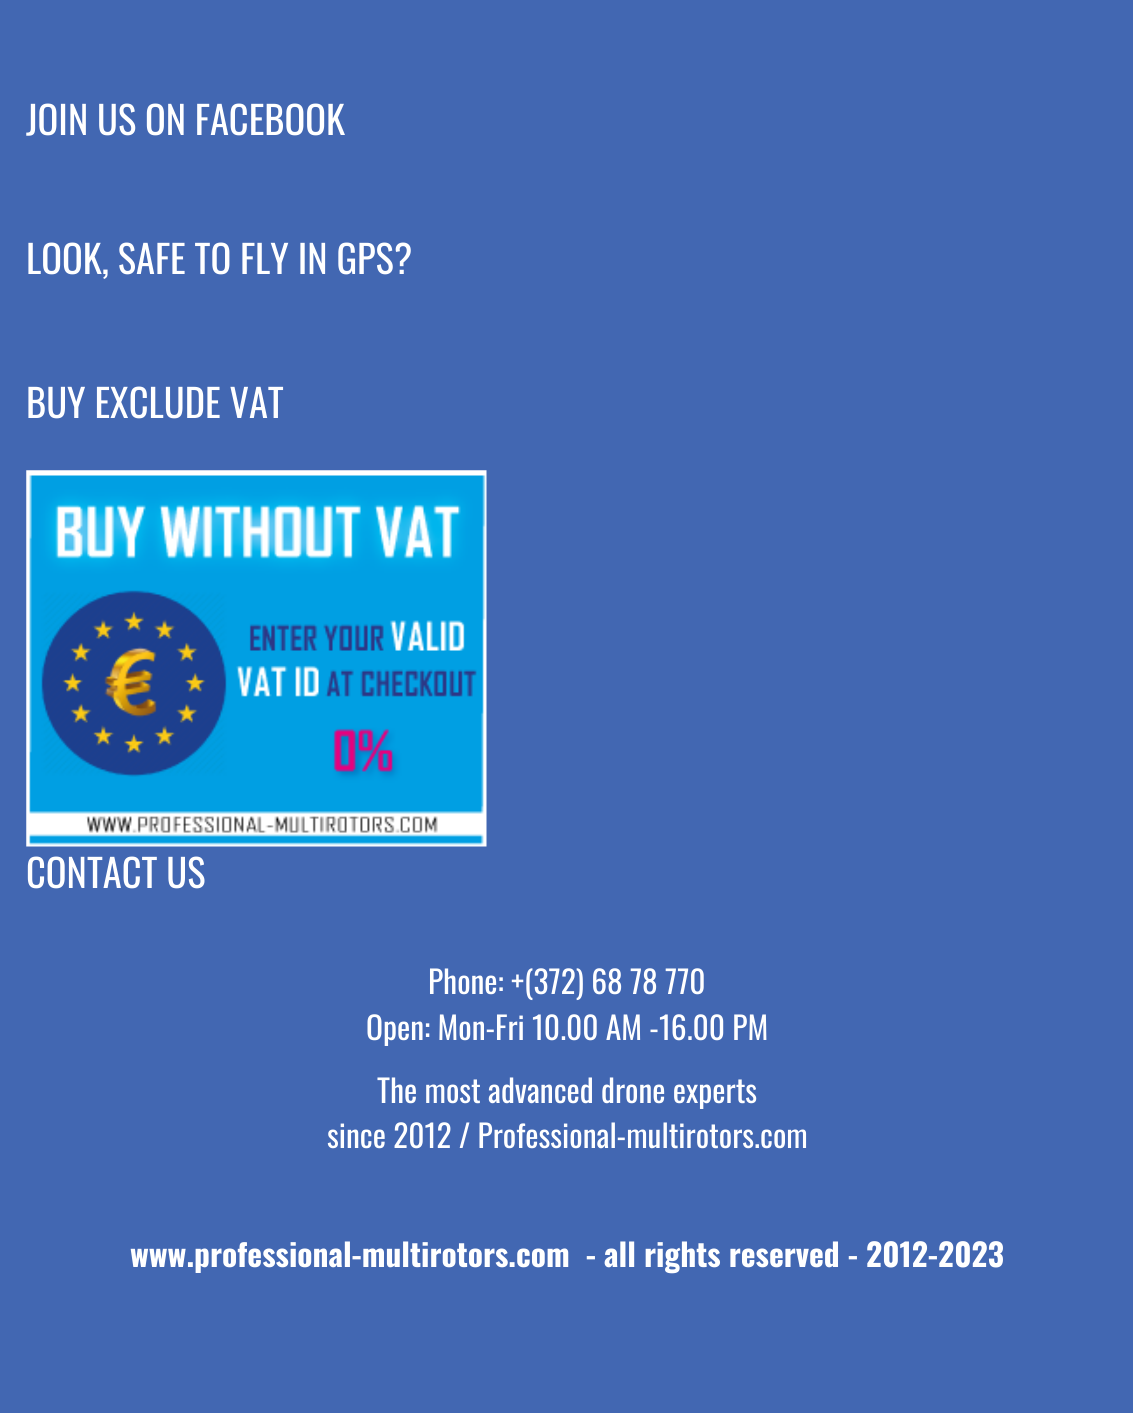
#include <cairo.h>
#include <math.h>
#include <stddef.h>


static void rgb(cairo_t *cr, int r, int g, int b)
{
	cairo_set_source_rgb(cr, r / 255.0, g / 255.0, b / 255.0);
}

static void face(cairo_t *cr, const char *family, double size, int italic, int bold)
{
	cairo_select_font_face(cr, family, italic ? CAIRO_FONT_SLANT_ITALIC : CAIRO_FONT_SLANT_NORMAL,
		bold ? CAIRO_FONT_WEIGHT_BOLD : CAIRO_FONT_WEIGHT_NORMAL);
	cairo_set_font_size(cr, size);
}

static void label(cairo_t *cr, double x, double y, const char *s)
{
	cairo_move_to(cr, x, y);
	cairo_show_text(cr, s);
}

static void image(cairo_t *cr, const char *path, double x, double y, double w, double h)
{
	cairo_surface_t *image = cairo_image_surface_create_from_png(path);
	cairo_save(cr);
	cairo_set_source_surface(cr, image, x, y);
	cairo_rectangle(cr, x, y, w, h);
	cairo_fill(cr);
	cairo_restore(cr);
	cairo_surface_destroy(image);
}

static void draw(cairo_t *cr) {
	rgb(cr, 66, 103, 178);
	cairo_paint(cr);
	face(cr, "Oswald", 38.5, 0, 0);
	rgb(cr, 255, 255, 255);
	label(cr, 26, 135, "JOIN US ON FACEBOOK");
	label(cr, 26, 274, "LOOK, SAFE TO FLY IN GPS?");
	label(cr, 26, 418, "BUY EXCLUDE VAT");
	image(cr, "image0.png", 26, 470, 461, 377);
	label(cr, 26, 888, "CONTACT US");
	face(cr, "Oswald", 31.5, 0, 0);
	label(cr, 428, 994, "Phone: +(372) 68 78 770");
	label(cr, 366, 1040, "Open: Mon-Fri 10.00 AM -16.00 PM");
	label(cr, 377, 1103, "The most advanced drone experts");
	label(cr, 327, 1148, "since 2012 / Professional-multirotors.com");
	face(cr, "Oswald", 31.5, 0, 1);
	label(cr, 130, 1267, "www.professional-multirotors.com  - all rights reserved - 2012-2023");
}

int main(void) {
	cairo_surface_t *surface = cairo_image_surface_create(CAIRO_FORMAT_RGB24, 1133, 1413);
	cairo_t *cr = cairo_create(surface);
	cairo_font_options_t *options = cairo_font_options_create();
	cairo_font_options_set_hint_metrics(options, CAIRO_HINT_METRICS_OFF);
	cairo_font_options_set_hint_style(options, CAIRO_HINT_STYLE_NONE);
	cairo_set_font_options(cr, options);
	cairo_set_miter_limit(cr, 4);
	draw(cr);
	cairo_surface_write_to_png(surface, "render.png");
	cairo_font_options_destroy(options);
	cairo_destroy(cr);
	cairo_surface_destroy(surface);
	return 0;
}
